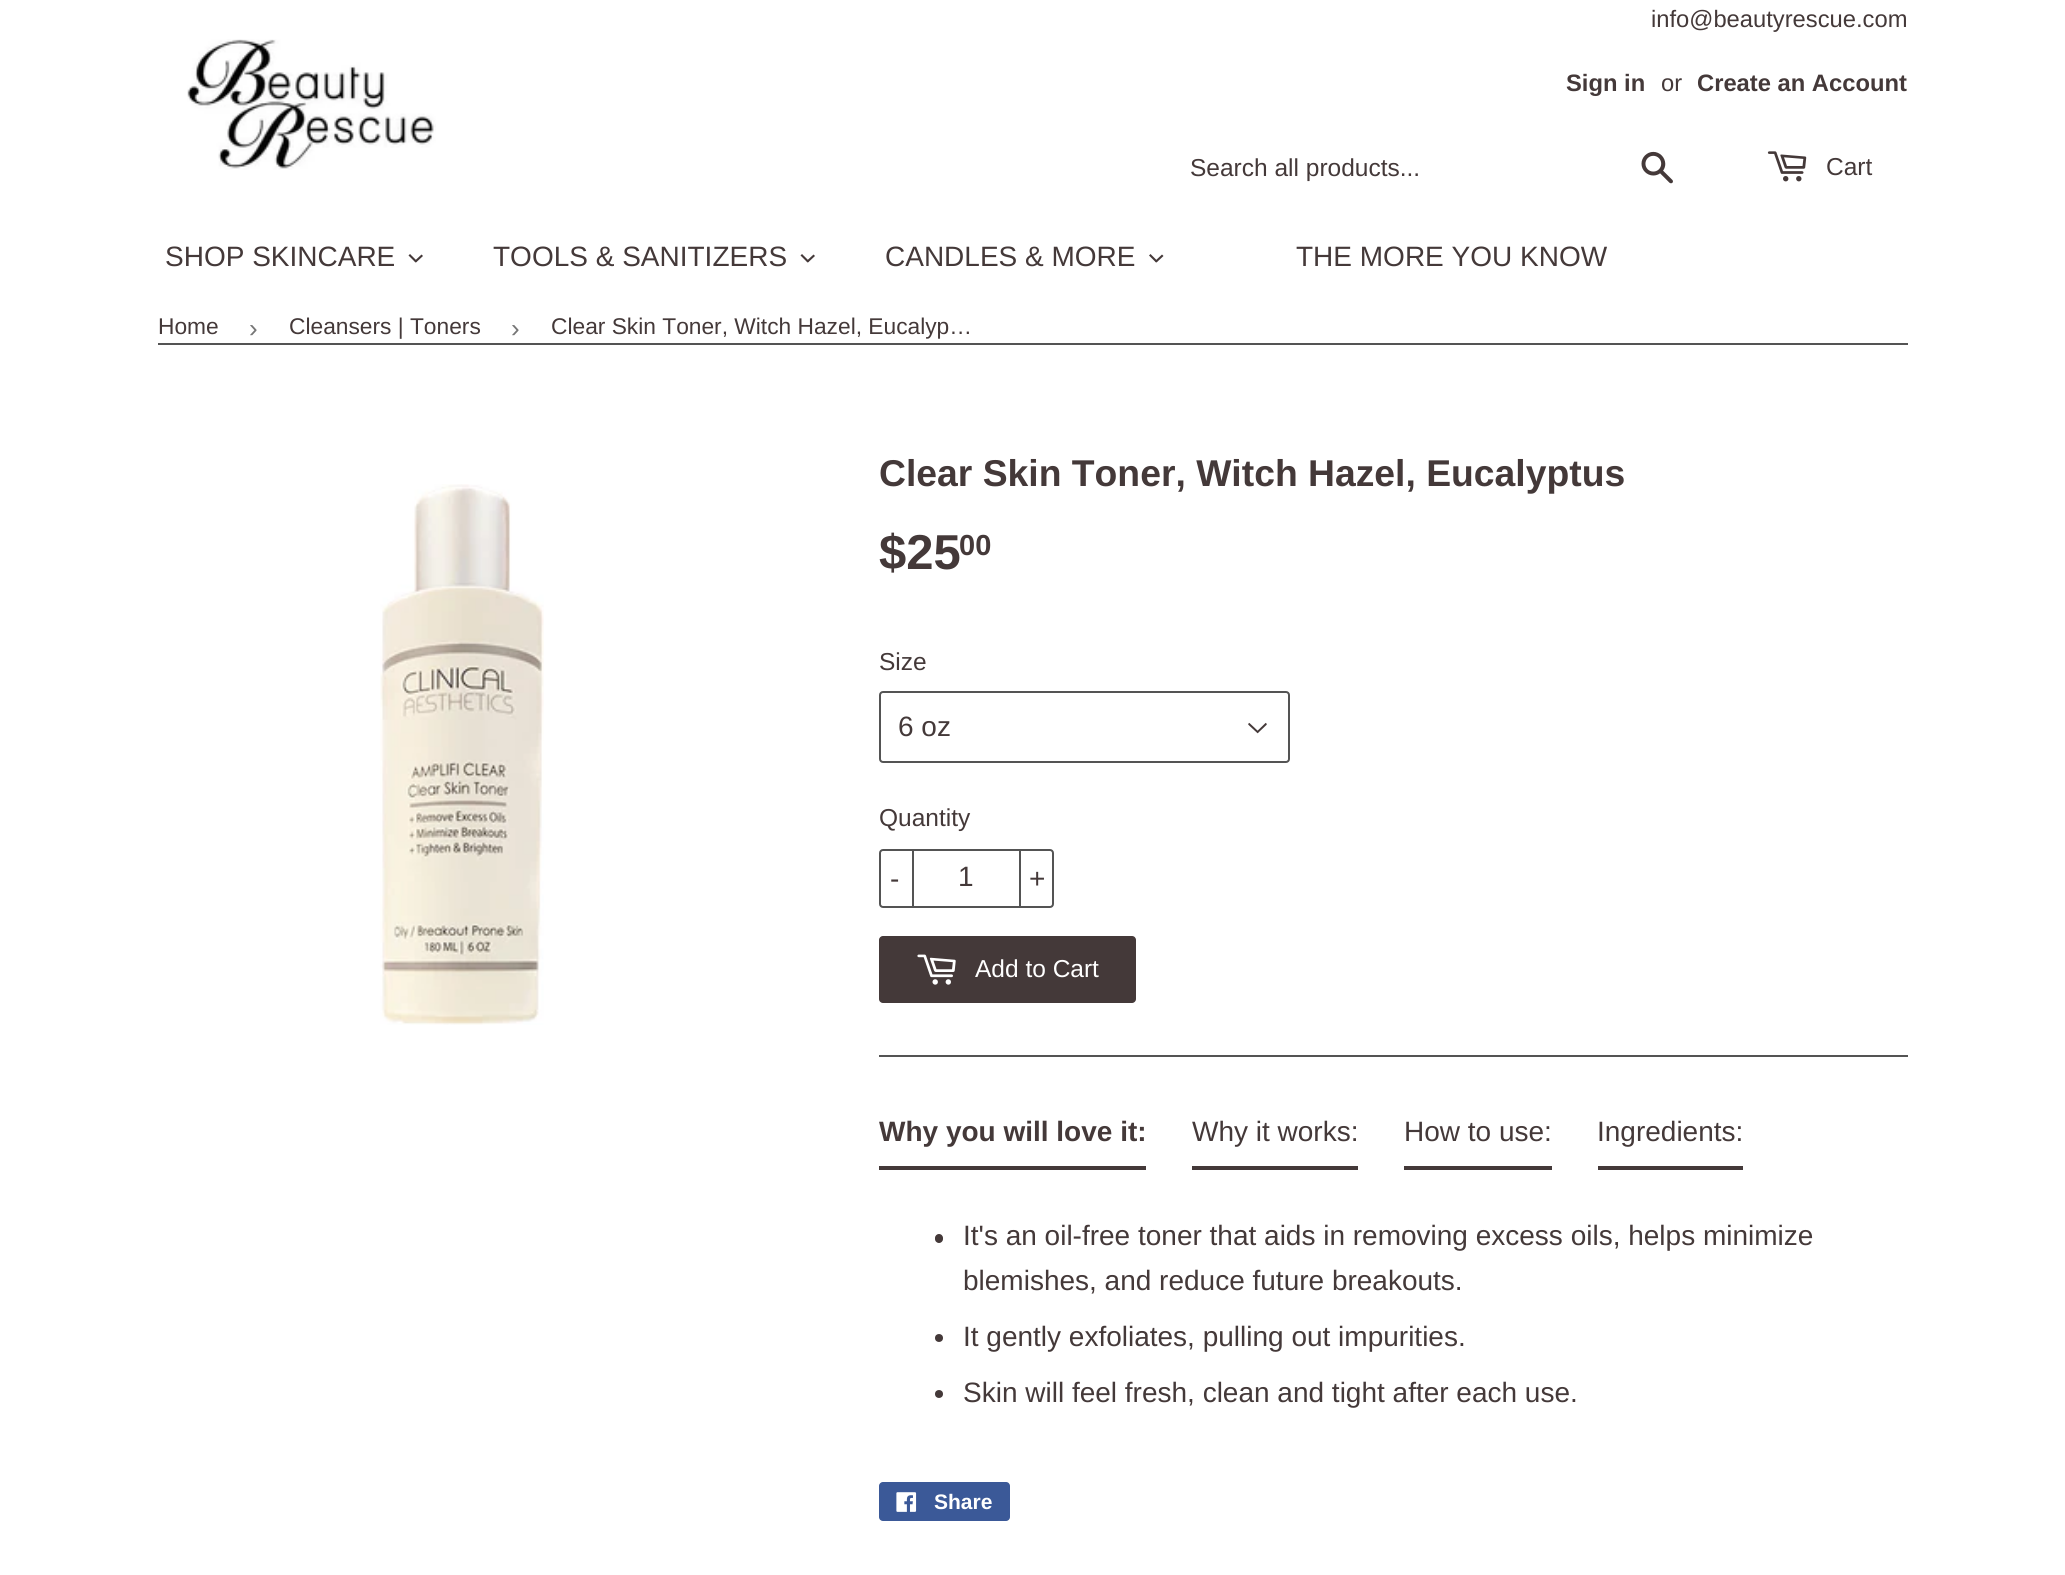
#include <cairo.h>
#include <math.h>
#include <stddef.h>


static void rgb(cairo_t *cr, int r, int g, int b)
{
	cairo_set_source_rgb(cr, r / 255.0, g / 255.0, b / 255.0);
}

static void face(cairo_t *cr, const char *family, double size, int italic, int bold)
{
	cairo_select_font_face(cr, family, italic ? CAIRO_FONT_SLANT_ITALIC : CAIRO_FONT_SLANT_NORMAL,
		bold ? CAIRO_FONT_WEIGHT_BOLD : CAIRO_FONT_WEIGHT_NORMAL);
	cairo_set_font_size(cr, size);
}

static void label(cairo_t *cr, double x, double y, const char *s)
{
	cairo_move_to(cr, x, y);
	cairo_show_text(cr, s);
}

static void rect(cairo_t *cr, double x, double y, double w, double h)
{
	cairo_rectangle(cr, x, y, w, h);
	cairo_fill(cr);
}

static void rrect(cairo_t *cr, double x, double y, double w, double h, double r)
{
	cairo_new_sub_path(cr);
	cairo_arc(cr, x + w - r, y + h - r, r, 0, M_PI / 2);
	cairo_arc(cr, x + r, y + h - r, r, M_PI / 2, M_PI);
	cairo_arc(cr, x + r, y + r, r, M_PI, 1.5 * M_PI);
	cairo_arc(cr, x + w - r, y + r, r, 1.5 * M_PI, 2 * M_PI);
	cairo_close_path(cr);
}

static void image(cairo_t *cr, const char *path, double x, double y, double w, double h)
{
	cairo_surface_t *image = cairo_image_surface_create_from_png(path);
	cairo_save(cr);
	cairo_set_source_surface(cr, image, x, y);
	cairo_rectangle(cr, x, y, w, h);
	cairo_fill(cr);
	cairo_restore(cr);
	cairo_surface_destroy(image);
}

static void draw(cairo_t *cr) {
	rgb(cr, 255, 255, 255);
	cairo_paint(cr);
	image(cr, "image0.png", 187, 39, 249, 131);
	face(cr, "Liberation Sans", 23.75, 0, 0);
	rgb(cr, 68, 57, 57);
	label(cr, 1651, 27, "info@beautyrescue.com");
	face(cr, "Liberation Sans", 23.75, 0, 1);
	label(cr, 1566, 91, "Sign in");
	face(cr, "Liberation Sans", 23.75, 0, 0);
	label(cr, 1661, 91, "or");
	face(cr, "Liberation Sans", 23.75, 0, 1);
	label(cr, 1697, 91, "Create an Account");
	face(cr, "Liberation Sans", 24.5, 0, 0);
	label(cr, 1190, 176, "Search all products...");
	image(cr, "image1.png", 1641, 151, 32, 33);
	image(cr, "image2.png", 1767, 151, 40, 31);
	label(cr, 1826, 175, "Cart");
	face(cr, "Liberation Sans", 28, 0, 0);
	label(cr, 165, 266, "SHOP SKINCARE");
	cairo_new_path(cr);
	cairo_move_to(cr, 421.5, 254.5);
	cairo_line_to(cr, 423, 256);
	cairo_line_to(cr, 416, 262.5);
	cairo_line_to(cr, 414.5, 261);
	cairo_close_path(cr);
	cairo_fill(cr);
	cairo_new_path(cr);
	cairo_move_to(cr, 410, 254);
	cairo_line_to(cr, 417, 261);
	cairo_line_to(cr, 415.5, 262.5);
	cairo_line_to(cr, 408.5, 255.5);
	cairo_close_path(cr);
	cairo_fill(cr);
	label(cr, 493, 266, "TOOLS & SANITIZERS");
	cairo_new_path(cr);
	cairo_move_to(cr, 813.5, 254.5);
	cairo_line_to(cr, 815, 256);
	cairo_line_to(cr, 808, 262.5);
	cairo_line_to(cr, 806.5, 261);
	cairo_close_path(cr);
	cairo_fill(cr);
	cairo_new_path(cr);
	cairo_move_to(cr, 802, 254);
	cairo_line_to(cr, 809, 261);
	cairo_line_to(cr, 807.5, 262.5);
	cairo_line_to(cr, 800.5, 255.5);
	cairo_close_path(cr);
	cairo_fill(cr);
	label(cr, 885, 266, "CANDLES & MORE");
	cairo_new_path(cr);
	cairo_move_to(cr, 1162, 254.5);
	cairo_line_to(cr, 1163.5, 256);
	cairo_line_to(cr, 1156.5, 262.5);
	cairo_line_to(cr, 1155, 261);
	cairo_close_path(cr);
	cairo_fill(cr);
	cairo_new_path(cr);
	cairo_move_to(cr, 1150.5, 254);
	cairo_line_to(cr, 1157.5, 261);
	cairo_line_to(cr, 1156, 262.5);
	cairo_line_to(cr, 1149, 255.5);
	cairo_close_path(cr);
	cairo_fill(cr);
	label(cr, 1296, 266, "THE MORE YOU KNOW");
	rgb(cr, 84, 84, 84);
	rect(cr, 158, 343, 1750, 2);
	face(cr, "Liberation Sans", 22.75, 0, 0);
	rgb(cr, 68, 57, 57);
	label(cr, 158, 334, "Home");
	face(cr, "Liberation Sans", 26, 0, 0);
	rgb(cr, 118, 118, 118);
	label(cr, 249, 337, "›");
	face(cr, "Liberation Sans", 22.75, 0, 0);
	rgb(cr, 68, 57, 57);
	label(cr, 289, 334, "Cleansers | Toners");
	face(cr, "Liberation Sans", 26, 0, 0);
	rgb(cr, 118, 118, 118);
	label(cr, 511, 337, "›");
	face(cr, "Liberation Sans", 22.75, 0, 0);
	rgb(cr, 68, 57, 57);
	label(cr, 551, 334, "Clear Skin Toner, Witch Hazel, Eucalyp…");
	image(cr, "image3.png", 380, 484, 164, 541);
	face(cr, "Liberation Sans", 37.3, 0, 1);
	label(cr, 879, 486, "Clear Skin Toner, Witch Hazel, Eucalyptus");
	face(cr, "Liberation Sans", 49, 0, 1);
	label(cr, 879, 569, "$25");
	face(cr, "Liberation Sans", 29, 0, 1);
	label(cr, 959, 555, "00");
	face(cr, "Liberation Sans", 24.5, 0, 0);
	label(cr, 879, 670, "Size");
	image(cr, "image4.png", 1248, 722, 19, 12);
	rrect(cr, 880, 692, 409, 70, 3);
	rgb(cr, 84, 84, 84);
	cairo_stroke(cr);
	face(cr, "Liberation Sans", 28, 0, 0);
	rgb(cr, 68, 57, 57);
	label(cr, 898, 736, "6 oz");
	face(cr, "Liberation Sans", 24.5, 0, 0);
	label(cr, 879, 826, "Quantity");
	rrect(cr, 880, 850, 173, 57, 3);
	rgb(cr, 84, 84, 84);
	cairo_stroke(cr);
	rect(cr, 912, 849, 2, 59);
	face(cr, "Liberation Sans", 28, 0, 0);
	rgb(cr, 68, 57, 57);
	label(cr, 890, 888, "-");
	label(cr, 958, 886, "1");
	rgb(cr, 84, 84, 84);
	rect(cr, 1019, 849, 2, 59);
	rgb(cr, 68, 57, 57);
	label(cr, 1029, 888, "+");
	rrect(cr, 879, 936, 257, 67, 4);
	cairo_fill(cr);
	image(cr, "image5.png", 917, 954, 39, 31);
	face(cr, "Liberation Sans", 24.5, 0, 0);
	rgb(cr, 255, 255, 255);
	label(cr, 975, 977, "Add to Cart");
	rgb(cr, 84, 84, 84);
	rect(cr, 879, 1055, 1029, 2);
	rgb(cr, 68, 57, 57);
	rect(cr, 879, 1166, 267, 4);
	face(cr, "Liberation Sans", 28, 0, 1);
	label(cr, 879, 1141, "Why you will love it:");
	rect(cr, 1192, 1166, 166, 4);
	face(cr, "Liberation Sans", 28, 0, 0);
	label(cr, 1192, 1141, "Why it works:");
	rect(cr, 1404, 1166, 148, 4);
	label(cr, 1404, 1141, "How to use:");
	rect(cr, 1598, 1166, 145, 4);
	label(cr, 1597, 1141, "Ingredients:");
	rrect(cr, 935, 1234, 8, 9, 4);
	cairo_fill(cr);
	label(cr, 963, 1245, "It's an oil-free toner that aids in removing excess oils, helps minimize");
	label(cr, 963, 1290, "blemishes, and reduce future breakouts.");
	cairo_new_path(cr);
	cairo_arc(cr, 939, 1338, 4, 0, 2 * M_PI);
	cairo_fill(cr);
	label(cr, 963, 1346, "It gently exfoliates, pulling out impurities.");
	cairo_new_path(cr);
	cairo_arc(cr, 939, 1394, 4, 0, 2 * M_PI);
	cairo_fill(cr);
	label(cr, 963, 1402, "Skin will feel fresh, clean and tight after each use.");
	rgb(cr, 59, 89, 152);
	rrect(cr, 879, 1482, 131, 39, 4);
	cairo_fill(cr);
	image(cr, "image6.png", 896, 1492, 21, 20);
	face(cr, "Liberation Sans", 21, 0, 1);
	rgb(cr, 255, 255, 255);
	label(cr, 934, 1509, "Share");
}

int main(void) {
	cairo_surface_t *surface = cairo_image_surface_create(CAIRO_FORMAT_RGB24, 2065, 1575);
	cairo_t *cr = cairo_create(surface);
	cairo_font_options_t *options = cairo_font_options_create();
	cairo_font_options_set_hint_metrics(options, CAIRO_HINT_METRICS_OFF);
	cairo_font_options_set_hint_style(options, CAIRO_HINT_STYLE_NONE);
	cairo_set_font_options(cr, options);
	cairo_set_miter_limit(cr, 4);
	draw(cr);
	cairo_surface_write_to_png(surface, "render.png");
	cairo_font_options_destroy(options);
	cairo_destroy(cr);
	cairo_surface_destroy(surface);
	return 0;
}
